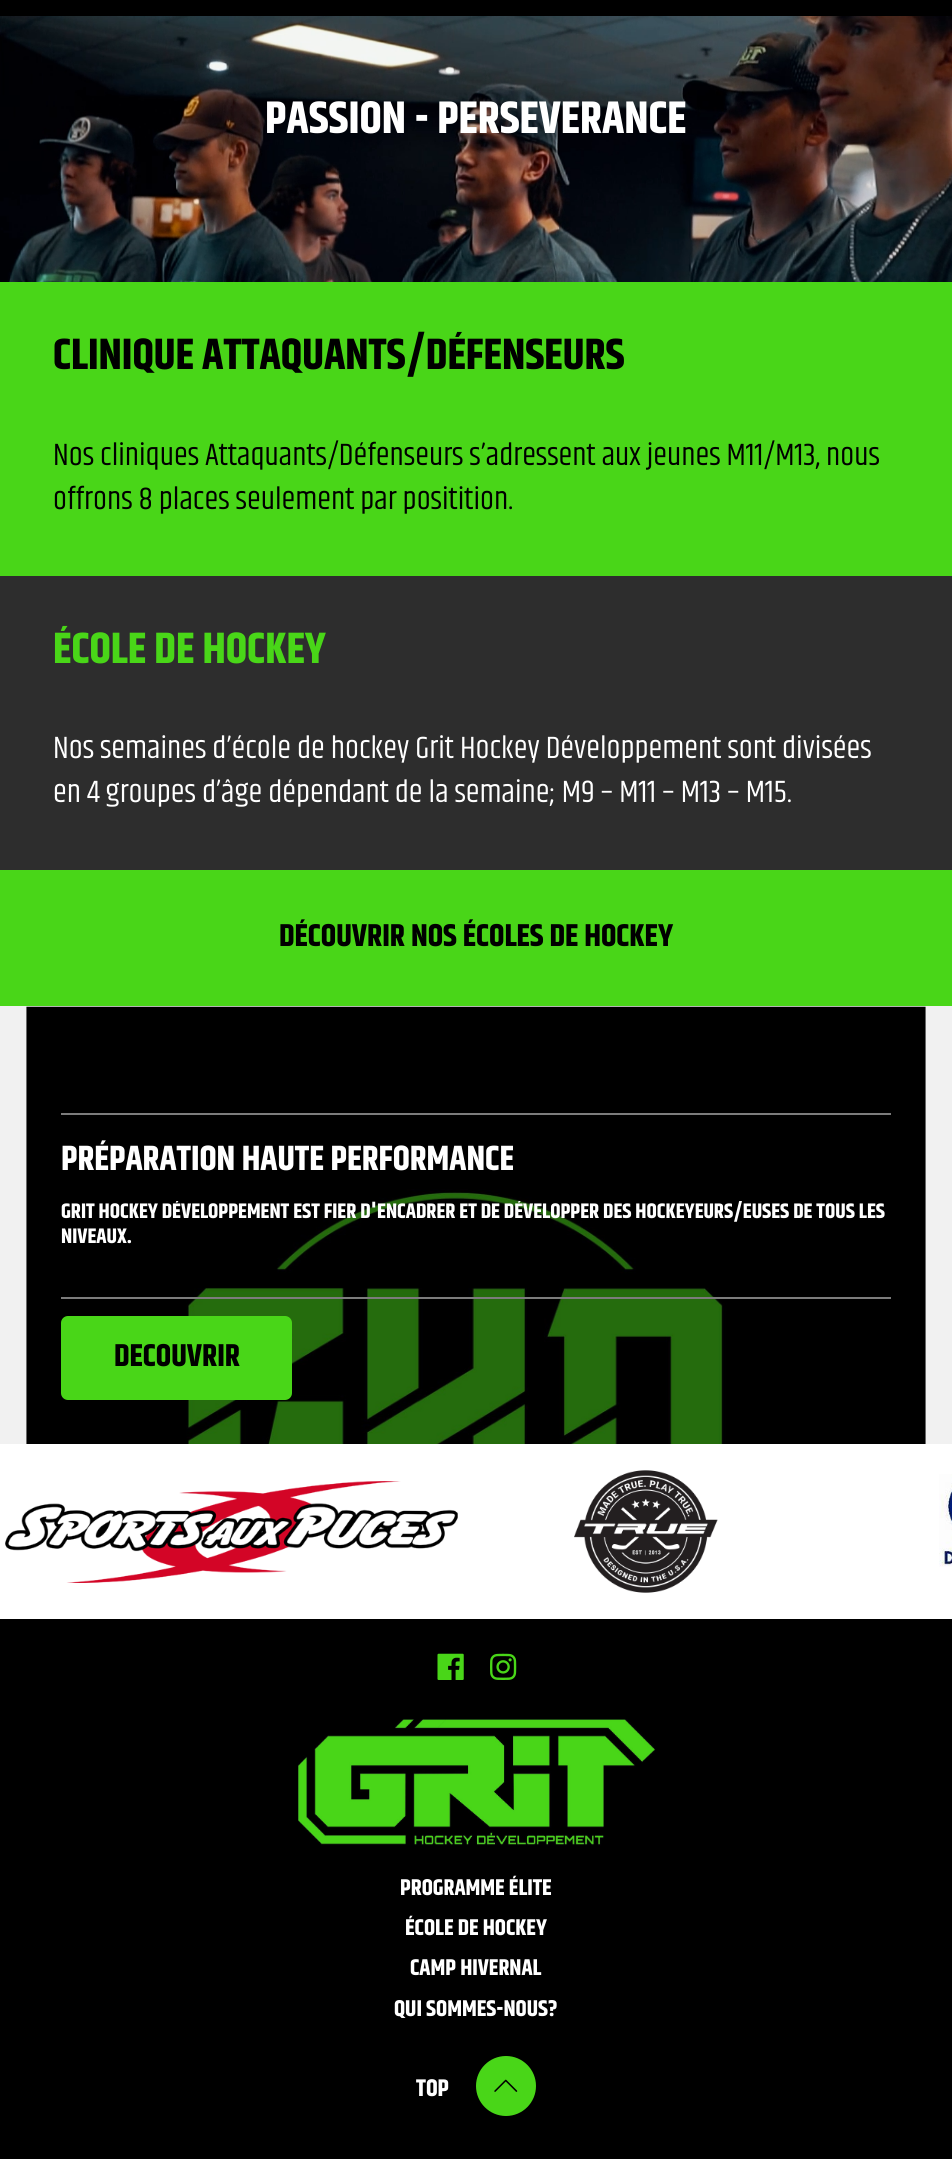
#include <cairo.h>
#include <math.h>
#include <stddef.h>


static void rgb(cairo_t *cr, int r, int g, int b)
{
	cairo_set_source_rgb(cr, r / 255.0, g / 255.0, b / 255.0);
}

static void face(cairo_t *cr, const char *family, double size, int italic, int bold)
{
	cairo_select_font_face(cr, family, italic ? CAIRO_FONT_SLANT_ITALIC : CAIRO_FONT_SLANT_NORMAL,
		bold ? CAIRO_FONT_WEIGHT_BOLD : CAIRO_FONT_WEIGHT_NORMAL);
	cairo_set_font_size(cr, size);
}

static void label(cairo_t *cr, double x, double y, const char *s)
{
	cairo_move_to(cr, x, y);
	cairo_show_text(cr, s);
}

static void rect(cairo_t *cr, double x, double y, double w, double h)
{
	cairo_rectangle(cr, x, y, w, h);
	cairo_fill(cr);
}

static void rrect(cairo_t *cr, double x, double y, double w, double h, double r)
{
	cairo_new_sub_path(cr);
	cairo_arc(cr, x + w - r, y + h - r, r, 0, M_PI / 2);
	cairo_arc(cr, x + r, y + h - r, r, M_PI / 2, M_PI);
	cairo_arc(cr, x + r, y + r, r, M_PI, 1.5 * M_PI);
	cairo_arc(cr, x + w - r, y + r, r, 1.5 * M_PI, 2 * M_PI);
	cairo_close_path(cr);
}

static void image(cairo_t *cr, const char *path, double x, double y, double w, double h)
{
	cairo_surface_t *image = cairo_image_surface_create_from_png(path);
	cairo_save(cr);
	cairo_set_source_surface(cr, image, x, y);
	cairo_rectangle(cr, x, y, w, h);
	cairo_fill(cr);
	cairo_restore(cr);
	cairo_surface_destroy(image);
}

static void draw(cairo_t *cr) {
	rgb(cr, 241, 241, 241);
	cairo_paint(cr);
	rgb(cr, 0, 0, 0);
	rect(cr, 0, 0, 952, 16);
	image(cr, "image0.png", 0, 16, 952, 266);
	face(cr, "Khand", 45.5, 0, 1);
	rgb(cr, 255, 255, 255);
	label(cr, 265, 133, "PASSION - PERSEVERANCE");
	rgb(cr, 73, 214, 24);
	rect(cr, 0, 282, 952, 294);
	face(cr, "Khand", 43.75, 0, 1);
	rgb(cr, 0, 0, 0);
	label(cr, 53, 369, "CLINIQUE ATTAQUANTS/DÉFENSEURS");
	face(cr, "Khand", 31.5, 0, 0);
	label(cr, 53, 465, "Nos cliniques Attaquants/Défenseurs s’adressent aux jeunes M11/M13, nous");
	label(cr, 53, 509, "offrons 8 places seulement par positition.");
	rgb(cr, 45, 45, 45);
	rect(cr, 0, 576, 952, 294);
	face(cr, "Khand", 43.75, 0, 1);
	rgb(cr, 73, 214, 24);
	label(cr, 53, 663, "ÉCOLE DE HOCKEY");
	face(cr, "Khand", 31.5, 0, 0);
	rgb(cr, 255, 255, 255);
	label(cr, 53, 758, "Nos semaines d’école de hockey Grit Hockey Développement sont divisées");
	label(cr, 53, 802, "en 4 groupes d’âge dépendant de la semaine; M9 – M11 – M13 – M15.");
	rgb(cr, 73, 214, 24);
	rect(cr, 0, 870, 952, 136);
	face(cr, "Khand", 31.5, 0, 1);
	rgb(cr, 0, 0, 0);
	label(cr, 279, 946, "DÉCOUVRIR NOS ÉCOLES DE HOCKEY");
	image(cr, "image1.png", 26, 1006, 900, 438);
	rgb(cr, 124, 124, 124);
	rect(cr, 61, 1113, 830, 2);
	rect(cr, 61, 1297, 830, 2);
	face(cr, "Khand", 35, 0, 1);
	rgb(cr, 255, 255, 255);
	label(cr, 61, 1170, "PRÉPARATION HAUTE PERFORMANCE");
	cairo_save(cr);
	cairo_rectangle(cr, 61, 1201, 830, 70);
	cairo_clip(cr);
	face(cr, "Khand", 21, 0, 1);
	label(cr, 61, 1218, "GRIT HOCKEY DÉVELOPPEMENT EST FIER D'ENCADRER ET DE DÉVELOPPER DES HOCKEYEURS/EUSES DE TOUS LES");
	cairo_restore(cr);
	face(cr, "Khand", 21, 0, 1);
	label(cr, 61, 1243, "NIVEAUX.");
	rgb(cr, 73, 214, 24);
	rrect(cr, 61, 1316, 231, 84, 7);
	cairo_fill(cr);
	face(cr, "Khand", 31.5, 0, 1);
	rgb(cr, 0, 0, 0);
	label(cr, 114, 1366, "DECOUVRIR");
	rgb(cr, 255, 255, 255);
	rect(cr, 0, 1444, 952, 175);
	image(cr, "image2.png", 5, 1481, 453, 102);
	image(cr, "image3.png", 574, 1470, 144, 123);
	image(cr, "image4.png", 939, 1474, 13, 93);
	rgb(cr, 0, 0, 0);
	rect(cr, 0, 1619, 952, 540);
	image(cr, "image5.png", 437, 1653, 27, 27);
	image(cr, "image6.png", 490, 1653, 27, 27);
	image(cr, "image7.png", 298, 1719, 358, 127);
	face(cr, "Khand", 22.75, 0, 1);
	rgb(cr, 255, 255, 255);
	label(cr, 400, 1895, "PROGRAMME ÉLITE");
	label(cr, 405, 1935, "ÉCOLE DE HOCKEY");
	label(cr, 410, 1975, "CAMP HIVERNAL");
	label(cr, 394, 2016, "QUI SOMMES-NOUS?");
	face(cr, "Khand", 24, 0, 1);
	label(cr, 416, 2096, "TOP");
	rgb(cr, 73, 214, 24);
	cairo_new_path(cr);
	cairo_arc(cr, 506, 2086, 30, 0, 2 * M_PI);
	cairo_fill(cr);
	image(cr, "image8.png", 494, 2079, 24, 13);
}

int main(void) {
	cairo_surface_t *surface = cairo_image_surface_create(CAIRO_FORMAT_RGB24, 952, 2159);
	cairo_t *cr = cairo_create(surface);
	cairo_font_options_t *options = cairo_font_options_create();
	cairo_font_options_set_hint_metrics(options, CAIRO_HINT_METRICS_OFF);
	cairo_font_options_set_hint_style(options, CAIRO_HINT_STYLE_NONE);
	cairo_set_font_options(cr, options);
	cairo_set_miter_limit(cr, 4);
	draw(cr);
	cairo_surface_write_to_png(surface, "render.png");
	cairo_font_options_destroy(options);
	cairo_destroy(cr);
	cairo_surface_destroy(surface);
	return 0;
}
